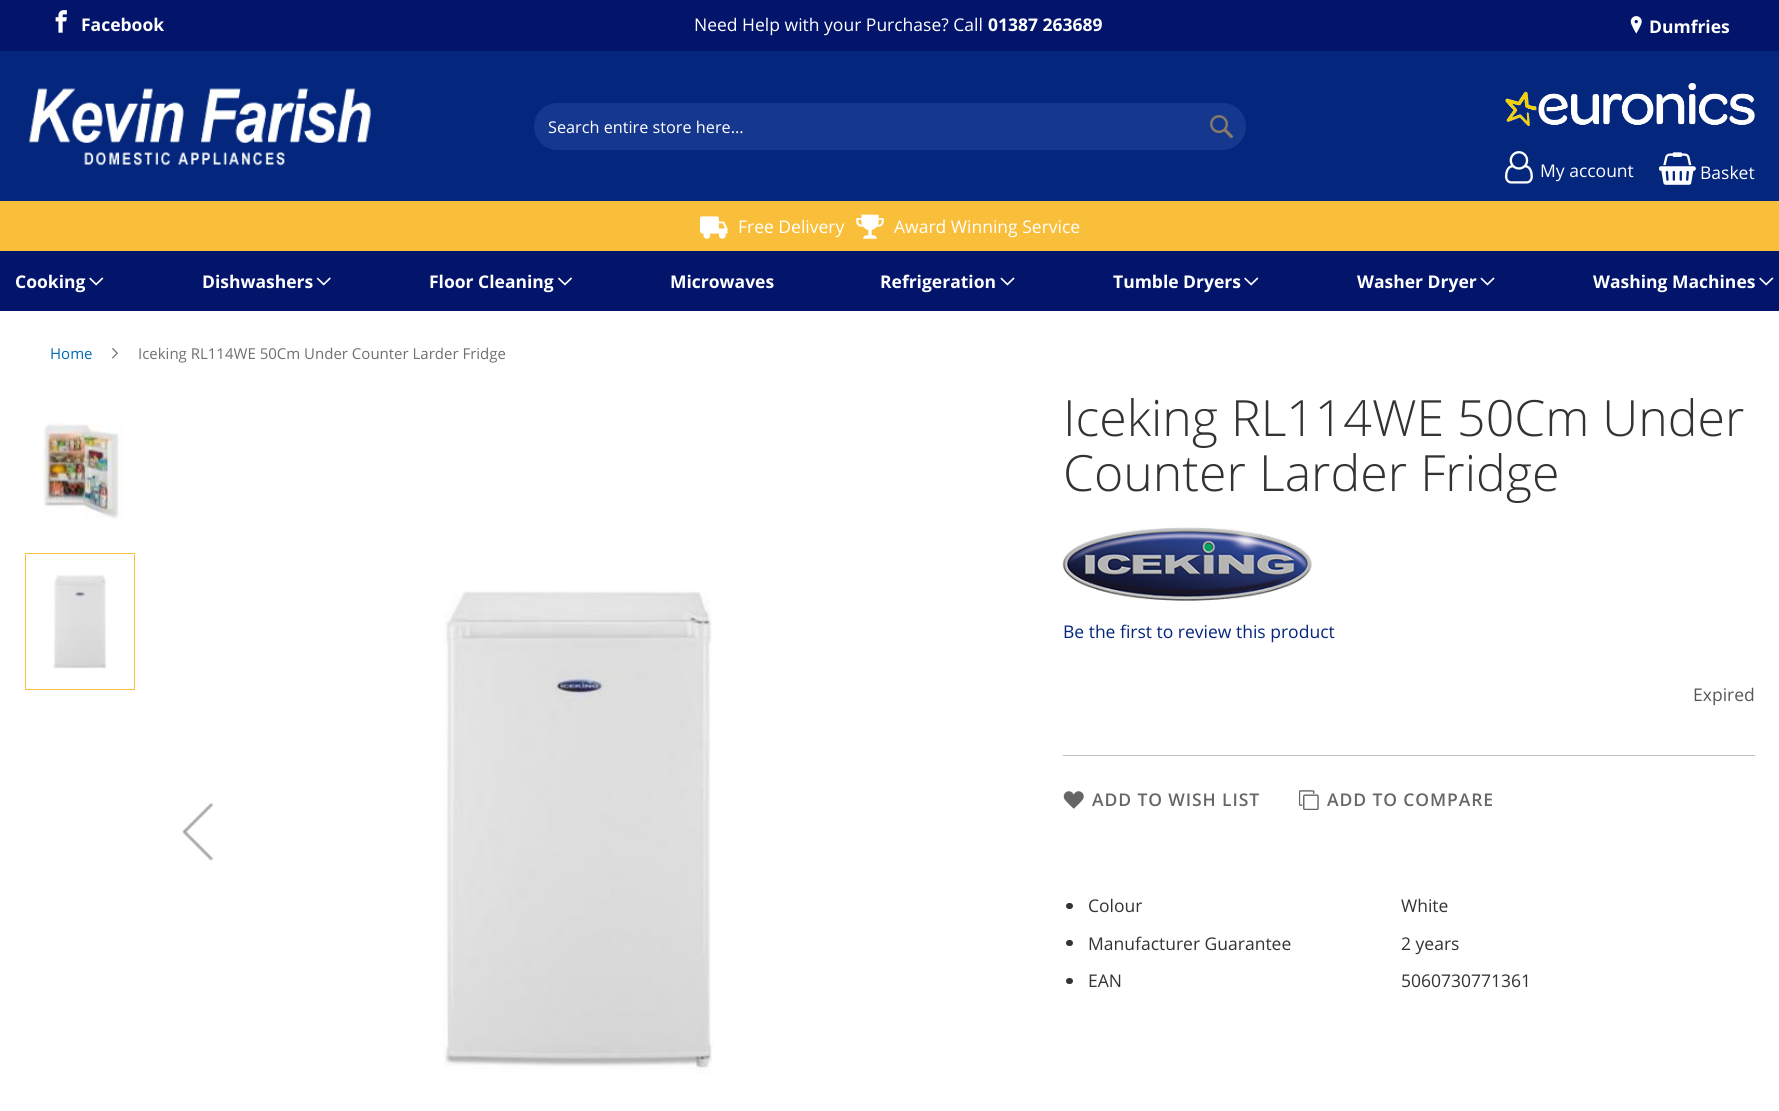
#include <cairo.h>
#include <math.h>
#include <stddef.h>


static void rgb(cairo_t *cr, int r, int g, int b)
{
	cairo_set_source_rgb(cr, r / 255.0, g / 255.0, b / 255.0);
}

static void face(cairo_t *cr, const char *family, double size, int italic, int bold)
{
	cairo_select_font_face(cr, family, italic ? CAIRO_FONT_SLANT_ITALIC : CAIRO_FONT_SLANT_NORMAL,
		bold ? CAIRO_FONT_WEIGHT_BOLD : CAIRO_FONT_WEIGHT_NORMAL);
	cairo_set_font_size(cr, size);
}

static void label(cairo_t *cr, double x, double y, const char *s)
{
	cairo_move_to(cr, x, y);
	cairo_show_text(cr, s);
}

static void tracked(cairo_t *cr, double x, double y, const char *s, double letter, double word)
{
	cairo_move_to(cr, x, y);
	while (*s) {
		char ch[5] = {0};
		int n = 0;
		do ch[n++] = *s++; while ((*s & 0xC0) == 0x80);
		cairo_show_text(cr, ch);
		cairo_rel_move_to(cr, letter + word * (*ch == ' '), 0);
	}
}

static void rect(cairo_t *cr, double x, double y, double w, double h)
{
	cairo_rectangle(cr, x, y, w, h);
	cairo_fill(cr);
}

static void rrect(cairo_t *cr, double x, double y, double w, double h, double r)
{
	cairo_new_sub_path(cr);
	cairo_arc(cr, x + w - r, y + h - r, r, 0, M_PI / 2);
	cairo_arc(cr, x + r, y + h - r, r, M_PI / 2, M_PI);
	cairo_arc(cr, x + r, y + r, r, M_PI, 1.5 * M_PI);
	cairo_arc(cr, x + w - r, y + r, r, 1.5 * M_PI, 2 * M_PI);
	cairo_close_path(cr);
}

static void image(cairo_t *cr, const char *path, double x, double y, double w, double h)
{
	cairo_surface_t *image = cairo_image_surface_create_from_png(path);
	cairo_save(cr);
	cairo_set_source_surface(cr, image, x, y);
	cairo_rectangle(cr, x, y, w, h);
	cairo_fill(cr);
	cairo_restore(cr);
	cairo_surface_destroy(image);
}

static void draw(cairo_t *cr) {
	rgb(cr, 255, 255, 255);
	cairo_paint(cr);
	rgb(cr, 3, 21, 107);
	rect(cr, 0, 0, 1779, 51);
	image(cr, "image0.png", 55, 10, 12, 23);
	face(cr, "Open Sans", 17.5, 0, 1);
	rgb(cr, 255, 255, 255);
	label(cr, 81, 31, "Facebook");
	face(cr, "Open Sans", 17.5, 0, 0);
	label(cr, 694, 31, "Need Help with your Purchase? Call");
	face(cr, "Open Sans", 17.5, 0, 1);
	label(cr, 988, 31, "01387 263689");
	image(cr, "image1.png", 1630, 16, 12, 18);
	label(cr, 1649, 33, "Dumfries");
	rgb(cr, 4, 38, 124);
	rect(cr, 0, 51, 1779, 150);
	image(cr, "image2.png", 29, 88, 342, 78);
	rgb(cr, 21, 55, 141);
	rrect(cr, 534, 103, 712, 47, 23.5);
	cairo_fill(cr);
	face(cr, "Open Sans", 16.25, 0, 0);
	rgb(cr, 255, 255, 255);
	label(cr, 548, 133, "Search entire store here...");
	image(cr, "image3.png", 1210, 115, 23, 23);
	image(cr, "image4.png", 1505, 83, 250, 44);
	image(cr, "image5.png", 1505, 151, 28, 33);
	face(cr, "Open Sans", 17.5, 0, 0);
	label(cr, 1540, 177, "My account");
	image(cr, "image6.png", 1659, 152, 37, 33);
	label(cr, 1700, 179, "Basket");
	rgb(cr, 249, 191, 59);
	rect(cr, 0, 201, 1779, 50);
	image(cr, "image7.png", 700, 216, 28, 23);
	rgb(cr, 255, 255, 255);
	label(cr, 738, 233, "Free Delivery");
	image(cr, "image8.png", 856, 214, 28, 25);
	label(cr, 894, 233, "Award Winning Service");
	rgb(cr, 3, 21, 107);
	rect(cr, 0, 251, 1779, 60);
	face(cr, "Open Sans", 17.5, 0, 1);
	rgb(cr, 255, 255, 255);
	label(cr, 15, 288, "Cooking");
	image(cr, "image9.png", 89, 277, 15, 9);
	label(cr, 202, 288, "Dishwashers");
	image(cr, "image10.png", 316, 277, 15, 9);
	label(cr, 429, 288, "Floor Cleaning");
	image(cr, "image11.png", 558, 277, 14, 9);
	label(cr, 670, 288, "Microwaves");
	label(cr, 880, 288, "Refrigeration");
	image(cr, "image12.png", 1000, 277, 15, 9);
	label(cr, 1113, 288, "Tumble Dryers");
	image(cr, "image9.png", 1244, 277, 15, 9);
	label(cr, 1357, 288, "Washer Dryer");
	image(cr, "image12.png", 1480, 277, 15, 9);
	label(cr, 1593, 288, "Washing Machines");
	image(cr, "image9.png", 1759, 277, 15, 9);
	face(cr, "Open Sans", 15, 0, 0);
	rgb(cr, 0, 107, 180);
	label(cr, 50, 359, "Home");
	image(cr, "image13.png", 112, 348, 6, 11);
	rgb(cr, 112, 112, 112);
	label(cr, 138, 359, "Iceking RL114WE 50Cm Under Counter Larder Fridge");
	image(cr, "image14.png", 43, 422, 81, 99);
	image(cr, "image15.png", 53, 574, 54, 95);
	cairo_rectangle(cr, 25.5, 553.5, 109, 136);
	rgb(cr, 249, 191, 59);
	cairo_set_line_width(cr, 1);
	cairo_stroke(cr);
	image(cr, "image16.png", 182, 803, 32, 58);
	image(cr, "image17.png", 443, 591, 270, 483);
	face(cr, "Open Sans Light", 50, 0, 0);
	rgb(cr, 51, 51, 51);
	label(cr, 1063, 436, "Iceking RL114WE 50Cm Under");
	label(cr, 1063, 491, "Counter Larder Fridge");
	image(cr, "image18.png", 1062, 527, 250, 74);
	face(cr, "Open Sans", 17.5, 0, 0);
	rgb(cr, 4, 38, 124);
	label(cr, 1063, 638, "Be the first to review this product");
	rgb(cr, 193, 193, 193);
	rect(cr, 1063, 755, 692, 1);
	rgb(cr, 87, 87, 87);
	label(cr, 1693, 701, "Expired");
	image(cr, "image19.png", 1063, 791, 21, 18);
	face(cr, "Open Sans SemiBold", 17.5, 0, 0);
	rgb(cr, 102, 102, 102);
	tracked(cr, 1092, 806, "ADD TO WISH LIST", 0.9, 0);
	image(cr, "image20.png", 1299, 790, 20, 20);
	tracked(cr, 1327, 806, "ADD TO COMPARE", 0.9, 0);
	rgb(cr, 51, 51, 51);
	rrect(cr, 1066, 903, 7, 6, 3);
	cairo_fill(cr);
	face(cr, "Open Sans", 17.5, 0, 0);
	label(cr, 1088, 912, "Colour");
	label(cr, 1401, 912, "White");
	rrect(cr, 1066, 940, 7, 6, 3);
	cairo_fill(cr);
	label(cr, 1088, 950, "Manufacturer Guarantee");
	label(cr, 1401, 950, "2 years");
	rrect(cr, 1066, 978, 7, 6, 3);
	cairo_fill(cr);
	label(cr, 1088, 987, "EAN");
	label(cr, 1401, 987, "5060730771361");
}

int main(void) {
	cairo_surface_t *surface = cairo_image_surface_create(CAIRO_FORMAT_RGB24, 1779, 1111);
	cairo_t *cr = cairo_create(surface);
	cairo_font_options_t *options = cairo_font_options_create();
	cairo_font_options_set_hint_metrics(options, CAIRO_HINT_METRICS_OFF);
	cairo_font_options_set_hint_style(options, CAIRO_HINT_STYLE_NONE);
	cairo_set_font_options(cr, options);
	cairo_set_miter_limit(cr, 4);
	draw(cr);
	cairo_surface_write_to_png(surface, "render.png");
	cairo_font_options_destroy(options);
	cairo_destroy(cr);
	cairo_surface_destroy(surface);
	return 0;
}
